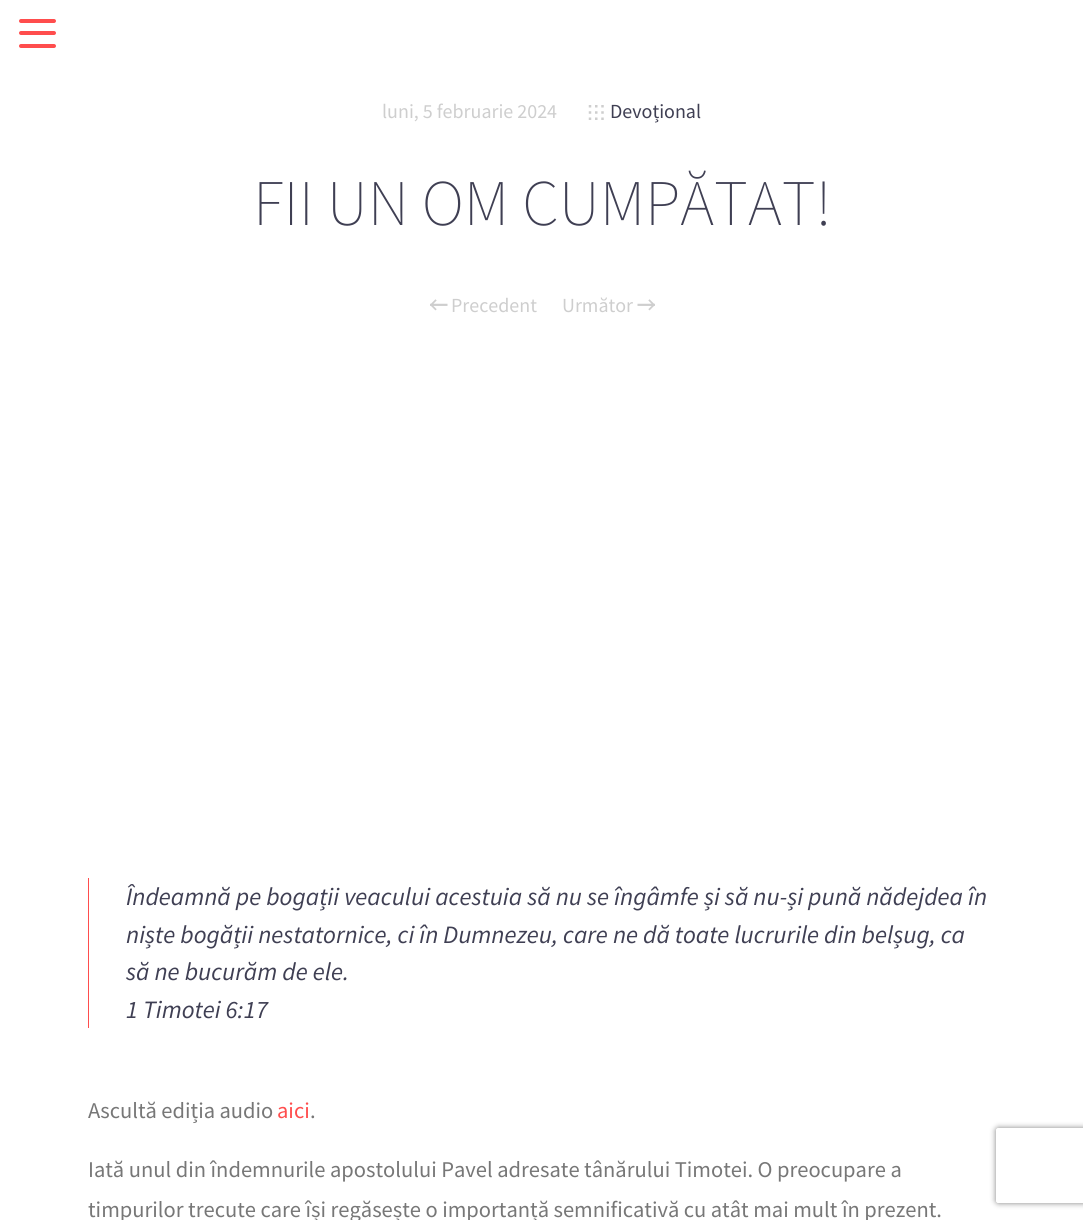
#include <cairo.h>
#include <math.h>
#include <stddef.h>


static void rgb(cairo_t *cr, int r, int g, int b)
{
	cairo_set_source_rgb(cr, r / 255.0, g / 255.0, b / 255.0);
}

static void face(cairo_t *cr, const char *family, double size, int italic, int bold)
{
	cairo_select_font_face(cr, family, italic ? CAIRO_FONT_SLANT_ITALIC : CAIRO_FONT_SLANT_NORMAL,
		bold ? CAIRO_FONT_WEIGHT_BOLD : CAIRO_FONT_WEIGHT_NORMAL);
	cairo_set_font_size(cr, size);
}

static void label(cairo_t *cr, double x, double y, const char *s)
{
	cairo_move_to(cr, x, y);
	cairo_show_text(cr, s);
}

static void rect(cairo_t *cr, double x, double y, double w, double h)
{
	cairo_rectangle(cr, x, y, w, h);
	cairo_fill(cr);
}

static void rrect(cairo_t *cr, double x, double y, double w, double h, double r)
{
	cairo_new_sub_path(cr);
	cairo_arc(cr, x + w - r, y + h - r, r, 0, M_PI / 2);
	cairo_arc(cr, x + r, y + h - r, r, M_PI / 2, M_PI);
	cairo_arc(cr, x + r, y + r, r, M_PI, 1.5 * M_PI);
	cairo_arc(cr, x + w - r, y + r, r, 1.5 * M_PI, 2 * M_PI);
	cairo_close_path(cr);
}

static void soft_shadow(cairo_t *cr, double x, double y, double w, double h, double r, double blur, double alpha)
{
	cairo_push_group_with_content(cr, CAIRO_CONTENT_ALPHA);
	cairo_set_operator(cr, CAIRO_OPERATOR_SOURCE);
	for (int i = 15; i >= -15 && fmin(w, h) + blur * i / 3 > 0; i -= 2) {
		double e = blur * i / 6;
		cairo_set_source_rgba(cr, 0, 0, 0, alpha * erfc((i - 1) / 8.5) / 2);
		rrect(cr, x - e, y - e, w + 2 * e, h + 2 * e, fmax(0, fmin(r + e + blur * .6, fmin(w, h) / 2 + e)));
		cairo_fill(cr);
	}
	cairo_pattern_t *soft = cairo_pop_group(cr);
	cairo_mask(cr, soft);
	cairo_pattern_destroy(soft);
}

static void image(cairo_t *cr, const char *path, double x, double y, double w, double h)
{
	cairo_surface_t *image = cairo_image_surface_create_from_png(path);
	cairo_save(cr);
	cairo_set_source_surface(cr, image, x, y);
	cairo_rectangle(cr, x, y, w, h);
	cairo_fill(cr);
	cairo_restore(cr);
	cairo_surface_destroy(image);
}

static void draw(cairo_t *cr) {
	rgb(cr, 255, 255, 255);
	cairo_paint(cr);
	rgb(cr, 255, 77, 77);
	rrect(cr, 19, 31, 37, 4, 2);
	cairo_fill(cr);
	rrect(cr, 19, 19, 37, 4, 2);
	cairo_fill(cr);
	rrect(cr, 19, 44, 37, 4, 2);
	cairo_fill(cr);
	face(cr, "Source Sans Pro", 20, 0, 0);
	rgb(cr, 206, 206, 206);
	label(cr, 382, 118, "luni, 5 februarie 2024");
	image(cr, "image0.png", 588, 105, 16, 15);
	rgb(cr, 63, 63, 83);
	label(cr, 610, 118, "Devoțional");
	face(cr, "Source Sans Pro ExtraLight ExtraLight", 65, 0, 0);
	label(cr, 253, 225, "FII UN OM CUMPĂTAT!");
	image(cr, "image1.png", 430, 299, 18, 12);
	face(cr, "Source Sans Pro", 20, 0, 0);
	rgb(cr, 206, 206, 206);
	label(cr, 451, 312, "Precedent");
	label(cr, 562, 312, "Următor");
	image(cr, "image2.png", 637, 299, 18, 12);
	rgb(cr, 255, 77, 77);
	rect(cr, 88, 878, 1, 150);
	face(cr, "Source Sans Pro", 25, 1, 0);
	rgb(cr, 63, 63, 83);
	label(cr, 126, 905, "Îndeamnă pe bogații veacului acestuia să nu se îngâmfe și să nu-și pună nădejdea în");
	label(cr, 126, 943, "niște bogății nestatornice, ci în Dumnezeu, care ne dă toate lucrurile din belșug, ca");
	label(cr, 126, 980, "să ne bucurăm de ele.");
	label(cr, 126, 1018, "1 Timotei 6:17");
	face(cr, "Source Sans Pro", 22.5, 0, 0);
	rgb(cr, 119, 119, 119);
	label(cr, 88, 1118, "Ascultă ediția audio");
	rgb(cr, 255, 77, 77);
	label(cr, 277, 1118, "aici");
	rgb(cr, 119, 119, 119);
	label(cr, 310, 1118, ".");
	label(cr, 88, 1177, "Iată unul din îndemnurile apostolului Pavel adresate tânărului Timotei. O preocupare a");
	label(cr, 88, 1217, "timpurilor trecute care își regăsește o importanță semnificativă cu atât mai mult în prezent.");
	cairo_save(cr);
	cairo_set_fill_rule(cr, CAIRO_FILL_RULE_EVEN_ODD);
	cairo_new_path(cr);
	cairo_move_to(cr, 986, 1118);
	cairo_line_to(cr, 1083, 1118);
	cairo_line_to(cr, 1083, 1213);
	cairo_line_to(cr, 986, 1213);
	cairo_close_path(cr);
	cairo_move_to(cr, 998.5, 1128);
	cairo_line_to(cr, 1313.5, 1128);
	cairo_curve_to(cr, 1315, 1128, 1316, 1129, 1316, 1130.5);
	cairo_line_to(cr, 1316, 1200.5);
	cairo_curve_to(cr, 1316, 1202, 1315, 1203, 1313.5, 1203);
	cairo_line_to(cr, 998.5, 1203);
	cairo_curve_to(cr, 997, 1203, 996, 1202, 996, 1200.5);
	cairo_line_to(cr, 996, 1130.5);
	cairo_curve_to(cr, 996, 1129, 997, 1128, 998.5, 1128);
	cairo_close_path(cr);
	cairo_clip(cr);
	rgb(cr, 128, 128, 128);
	soft_shadow(cr, 996, 1128, 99, 75, 2.5, 3, 1);
	cairo_restore(cr);
}

int main(void) {
	cairo_surface_t *surface = cairo_image_surface_create(CAIRO_FORMAT_RGB24, 1083, 1220);
	cairo_t *cr = cairo_create(surface);
	cairo_font_options_t *options = cairo_font_options_create();
	cairo_font_options_set_hint_metrics(options, CAIRO_HINT_METRICS_OFF);
	cairo_font_options_set_hint_style(options, CAIRO_HINT_STYLE_NONE);
	cairo_set_font_options(cr, options);
	cairo_set_miter_limit(cr, 4);
	draw(cr);
	cairo_surface_write_to_png(surface, "render.png");
	cairo_font_options_destroy(options);
	cairo_destroy(cr);
	cairo_surface_destroy(surface);
	return 0;
}
